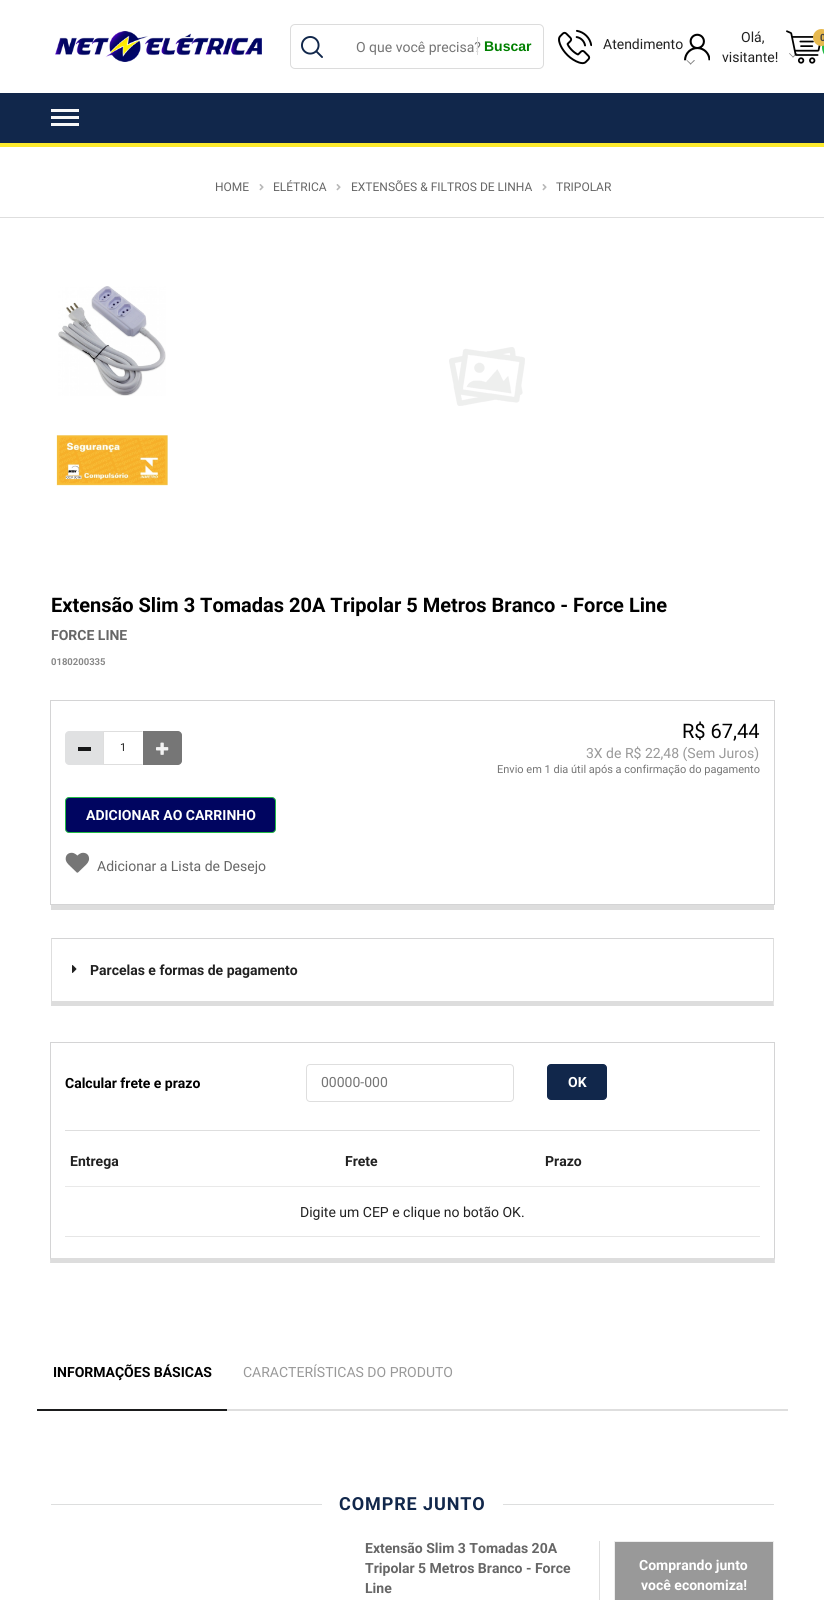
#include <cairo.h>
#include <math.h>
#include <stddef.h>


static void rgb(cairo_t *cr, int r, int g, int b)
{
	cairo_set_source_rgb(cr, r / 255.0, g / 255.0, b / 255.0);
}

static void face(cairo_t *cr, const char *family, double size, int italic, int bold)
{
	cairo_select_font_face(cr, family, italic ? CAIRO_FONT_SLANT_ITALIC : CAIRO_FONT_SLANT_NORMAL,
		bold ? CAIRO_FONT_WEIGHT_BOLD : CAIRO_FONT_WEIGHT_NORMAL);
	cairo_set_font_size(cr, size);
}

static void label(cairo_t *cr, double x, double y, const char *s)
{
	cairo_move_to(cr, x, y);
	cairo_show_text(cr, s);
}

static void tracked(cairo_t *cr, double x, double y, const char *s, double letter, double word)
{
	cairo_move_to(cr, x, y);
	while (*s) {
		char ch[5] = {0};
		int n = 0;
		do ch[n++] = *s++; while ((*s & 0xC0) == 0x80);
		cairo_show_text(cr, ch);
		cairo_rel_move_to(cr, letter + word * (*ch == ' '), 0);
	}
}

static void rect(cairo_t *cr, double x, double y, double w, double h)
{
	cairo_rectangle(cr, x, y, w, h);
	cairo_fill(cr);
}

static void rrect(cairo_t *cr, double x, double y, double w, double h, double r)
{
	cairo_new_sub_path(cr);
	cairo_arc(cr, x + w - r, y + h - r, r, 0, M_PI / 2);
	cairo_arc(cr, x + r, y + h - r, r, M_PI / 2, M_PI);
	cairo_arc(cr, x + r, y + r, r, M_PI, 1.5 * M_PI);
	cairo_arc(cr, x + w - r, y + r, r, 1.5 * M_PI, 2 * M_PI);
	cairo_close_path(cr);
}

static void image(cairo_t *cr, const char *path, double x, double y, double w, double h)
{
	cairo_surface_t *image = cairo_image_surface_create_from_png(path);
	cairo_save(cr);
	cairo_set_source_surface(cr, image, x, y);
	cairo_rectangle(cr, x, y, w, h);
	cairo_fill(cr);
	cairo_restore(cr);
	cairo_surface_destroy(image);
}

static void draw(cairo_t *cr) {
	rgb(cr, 255, 255, 255);
	cairo_paint(cr);
	image(cr, "image0.png", 55, 31, 207, 31);
	image(cr, "image1.png", 301, 36, 22, 22);
	rrect(cr, 290.5, 24.5, 253, 44, 4.5);
	rgb(cr, 220, 220, 220);
	cairo_set_line_width(cr, 1);
	cairo_stroke(cr);
	face(cr, "Roboto", 14, 0, 0);
	rgb(cr, 117, 117, 117);
	label(cr, 356, 52, "O que você precisa?");
	rgb(cr, 220, 220, 220);
	rect(cr, 477, 37, 1, 18);
	face(cr, "Liberation Sans", 14, 0, 1);
	rgb(cr, 0, 128, 0);
	label(cr, 484, 51, "Buscar");
	rgb(cr, 128, 128, 128);
	cairo_new_path(cr);
	cairo_move_to(cr, 694, 60);
	cairo_line_to(cr, 695, 60.5);
	cairo_line_to(cr, 690.5, 64.5);
	cairo_line_to(cr, 690, 64);
	cairo_close_path(cr);
	cairo_fill(cr);
	cairo_new_path(cr);
	cairo_move_to(cr, 687, 60);
	cairo_line_to(cr, 691.5, 64);
	cairo_line_to(cr, 690.5, 64.5);
	cairo_line_to(cr, 686.5, 60.5);
	cairo_close_path(cr);
	cairo_fill(cr);
	image(cr, "image2.png", 684, 33, 26, 28);
	face(cr, "Roboto", 14, 0, 0);
	rgb(cr, 33, 33, 33);
	label(cr, 741, 42, "Olá,");
	label(cr, 722, 62, "visitante!");
	rgb(cr, 128, 128, 128);
	cairo_new_path(cr);
	cairo_move_to(cr, 796.5, 53);
	cairo_line_to(cr, 797.5, 53.5);
	cairo_line_to(cr, 793, 57.5);
	cairo_line_to(cr, 792.5, 57);
	cairo_close_path(cr);
	cairo_fill(cr);
	cairo_new_path(cr);
	cairo_move_to(cr, 789.5, 53);
	cairo_line_to(cr, 793.5, 57);
	cairo_line_to(cr, 793, 57.5);
	cairo_line_to(cr, 789, 53.5);
	cairo_close_path(cr);
	cairo_fill(cr);
	rgb(cr, 33, 186, 69);
	rrect(cr, 822, 32, 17, 30, 15);
	cairo_fill(cr);
	image(cr, "image3.png", 558, 29, 34, 36);
	rgb(cr, 33, 33, 33);
	label(cr, 603, 49, "Atendimento");
	image(cr, "image4.png", 786, 30, 35, 34);
	rgb(cr, 231, 185, 79);
	cairo_arc(cr, 821.5, 37.5, 8.5, 0, 2 * M_PI);
	cairo_fill(cr);
	face(cr, "Roboto", 10, 0, 1);
	rgb(cr, 68, 68, 68);
	label(cr, 820, 41, "0");
	rgb(cr, 17, 39, 75);
	rect(cr, 0, 93, 824, 50);
	rgb(cr, 248, 248, 248);
	rect(cr, 51, 116, 28, 3);
	rect(cr, 51, 109, 28, 3);
	rect(cr, 51, 123, 28, 3);
	rgb(cr, 253, 234, 45);
	rect(cr, 0, 143, 824, 4);
	face(cr, "Roboto", 12, 0, 0);
	rgb(cr, 102, 102, 102);
	label(cr, 215, 191, "HOME");
	image(cr, "image5.png", 259, 184, 5, 7);
	label(cr, 273, 191, "ELÉTRICA");
	image(cr, "image5.png", 336, 184, 5, 7);
	label(cr, 351, 191, "EXTENSÕES & FILTROS DE LINHA");
	image(cr, "image5.png", 542, 184, 5, 7);
	label(cr, 556, 191, "TRIPOLAR");
	rgb(cr, 222, 222, 222);
	rect(cr, 0, 217, 824, 1);
	image(cr, "image6.png", 58, 286, 108, 110);
	image(cr, "image7.png", 56, 435, 112, 51);
	image(cr, "image8.png", 449, 347, 76, 59);
	face(cr, "Roboto", 20, 0, 1);
	rgb(cr, 0, 0, 0);
	label(cr, 51, 612, "Extensão Slim 3 Tomadas 20A Tripolar 5 Metros Branco - Force Line");
	face(cr, "Roboto", 14, 0, 1);
	rgb(cr, 102, 102, 102);
	label(cr, 51, 640, "FORCE LINE");
	face(cr, "Roboto", 9.5, 0, 1);
	rgb(cr, 136, 136, 136);
	label(cr, 51, 665, "0180200335");
	rgb(cr, 221, 221, 221);
	rect(cr, 51, 905, 723, 5);
	cairo_rectangle(cr, 50.5, 700.5, 724, 204);
	rgb(cr, 212, 212, 213);
	cairo_stroke(cr);
	rgb(cr, 224, 225, 226);
	cairo_new_path(cr);
	cairo_move_to(cr, 69, 731);
	cairo_line_to(cr, 103, 731);
	cairo_line_to(cr, 103, 765);
	cairo_line_to(cr, 69, 765);
	cairo_curve_to(cr, 67, 765, 65, 763, 65, 761);
	cairo_line_to(cr, 65, 735);
	cairo_curve_to(cr, 65, 733, 67, 731, 69, 731);
	cairo_close_path(cr);
	cairo_fill(cr);
	rgb(cr, 22, 23, 23);
	rect(cr, 78, 747, 13, 4);
	rgb(cr, 222, 222, 222);
	cairo_new_path(cr);
	cairo_move_to(cr, 103, 731);
	cairo_line_to(cr, 143, 731);
	cairo_line_to(cr, 142, 732);
	cairo_line_to(cr, 104, 732);
	cairo_close_path(cr);
	cairo_move_to(cr, 143, 765);
	cairo_line_to(cr, 103, 765);
	cairo_line_to(cr, 104, 764);
	cairo_line_to(cr, 142, 764);
	cairo_close_path(cr);
	cairo_fill(cr);
	cairo_set_source_rgba(cr, 0.133, 0.141, 0.149, 0.15);
	cairo_new_path(cr);
	cairo_move_to(cr, 103, 765);
	cairo_line_to(cr, 103, 731);
	cairo_line_to(cr, 104, 732);
	cairo_line_to(cr, 104, 764);
	cairo_close_path(cr);
	cairo_fill(cr);
	face(cr, "Roboto", 11, 0, 0);
	rgb(cr, 33, 33, 33);
	label(cr, 120, 751, "1");
	rgb(cr, 118, 118, 118);
	cairo_new_path(cr);
	cairo_move_to(cr, 143, 731);
	cairo_line_to(cr, 178, 731);
	cairo_curve_to(cr, 180, 731, 182, 733, 182, 735);
	cairo_line_to(cr, 182, 761);
	cairo_curve_to(cr, 182, 763, 180, 765, 178, 765);
	cairo_line_to(cr, 143, 765);
	cairo_close_path(cr);
	cairo_fill(cr);
	image(cr, "image9.png", 156, 742, 13, 13);
	face(cr, "Roboto", 20, 0, 0);
	rgb(cr, 0, 0, 0);
	label(cr, 682, 738, "R$ 67,44");
	face(cr, "Roboto", 14, 0, 0);
	rgb(cr, 153, 153, 153);
	label(cr, 586, 758, "3X de R$ 22,48 (Sem Juros)");
	face(cr, "Roboto", 11, 0, 0);
	rgb(cr, 117, 117, 117);
	label(cr, 497, 773, "Envio em 1 dia útil após a confirmação do pagamento");
	rgb(cr, 0, 5, 96);
	rrect(cr, 65.5, 797.5, 210, 35, 3.5);
	cairo_fill_preserve(cr);
	rgb(cr, 33, 186, 69);
	cairo_stroke(cr);
	face(cr, "Roboto", 14, 0, 1);
	rgb(cr, 255, 255, 255);
	label(cr, 86, 820, "ADICIONAR AO CARRINHO");
	image(cr, "image10.png", 65, 852, 25, 21);
	face(cr, "Roboto", 14, 0, 0);
	rgb(cr, 102, 102, 102);
	label(cr, 97, 871, "Adicionar a Lista de Desejo");
	rgb(cr, 212, 212, 213);
	cairo_new_path(cr);
	cairo_move_to(cr, 51, 938);
	cairo_line_to(cr, 774, 938);
	cairo_line_to(cr, 773, 939);
	cairo_line_to(cr, 52, 939);
	cairo_close_path(cr);
	cairo_fill(cr);
	cairo_set_source_rgba(cr, 0.133, 0.141, 0.149, 0.15);
	cairo_new_path(cr);
	cairo_move_to(cr, 774, 938);
	cairo_line_to(cr, 774, 1006);
	cairo_line_to(cr, 773, 1001);
	cairo_line_to(cr, 773, 939);
	cairo_close_path(cr);
	cairo_fill(cr);
	rgb(cr, 221, 221, 221);
	cairo_new_path(cr);
	cairo_move_to(cr, 774, 1006);
	cairo_line_to(cr, 51, 1006);
	cairo_line_to(cr, 52, 1001);
	cairo_line_to(cr, 773, 1001);
	cairo_close_path(cr);
	cairo_fill(cr);
	cairo_set_source_rgba(cr, 0.133, 0.141, 0.149, 0.15);
	cairo_new_path(cr);
	cairo_move_to(cr, 51, 1006);
	cairo_line_to(cr, 51, 938);
	cairo_line_to(cr, 52, 939);
	cairo_line_to(cr, 52, 1001);
	cairo_close_path(cr);
	cairo_fill(cr);
	image(cr, "image11.png", 72, 965, 5, 8);
	face(cr, "Roboto", 14, 0, 1);
	rgb(cr, 33, 33, 33);
	label(cr, 90, 975, "Parcelas e formas de pagamento");
	rgb(cr, 212, 212, 213);
	rect(cr, 50, 1042, 725, 1);
	cairo_new_path(cr);
	cairo_move_to(cr, 775, 1042);
	cairo_line_to(cr, 775, 1263);
	cairo_line_to(cr, 774, 1258);
	cairo_line_to(cr, 774, 1043);
	cairo_close_path(cr);
	cairo_fill(cr);
	rgb(cr, 221, 221, 221);
	cairo_new_path(cr);
	cairo_move_to(cr, 775, 1263);
	cairo_line_to(cr, 50, 1263);
	cairo_line_to(cr, 51, 1258);
	cairo_line_to(cr, 774, 1258);
	cairo_close_path(cr);
	cairo_fill(cr);
	rgb(cr, 212, 212, 213);
	cairo_new_path(cr);
	cairo_move_to(cr, 50, 1263);
	cairo_line_to(cr, 50, 1042);
	cairo_line_to(cr, 51, 1043);
	cairo_line_to(cr, 51, 1258);
	cairo_close_path(cr);
	cairo_fill(cr);
	rgb(cr, 0, 0, 0);
	label(cr, 65, 1088, "Calcular frete e prazo");
	rrect(cr, 306.5, 1064.5, 207, 37, 3.5);
	rgb(cr, 222, 222, 222);
	cairo_stroke(cr);
	face(cr, "Roboto", 14, 0, 0);
	rgb(cr, 117, 117, 117);
	label(cr, 321, 1087, "00000-000");
	rgb(cr, 17, 39, 75);
	rrect(cr, 547.5, 1064.5, 59, 35, 3.5);
	cairo_fill_preserve(cr);
	cairo_stroke(cr);
	face(cr, "Roboto", 14, 0, 1);
	rgb(cr, 255, 255, 255);
	label(cr, 568, 1087, "OK");
	rgb(cr, 222, 222, 222);
	rect(cr, 65, 1130, 695, 1);
	rgb(cr, 233, 233, 233);
	rect(cr, 65, 1186, 695, 1);
	rgb(cr, 33, 33, 33);
	label(cr, 70, 1166, "Entrega");
	label(cr, 345, 1166, "Frete");
	label(cr, 545, 1166, "Prazo");
	rgb(cr, 230, 230, 230);
	rect(cr, 65, 1236, 695, 1);
	face(cr, "Roboto", 14, 0, 0);
	rgb(cr, 33, 33, 33);
	label(cr, 300, 1217, "Digite um CEP e clique no botão OK.");
	rgb(cr, 222, 222, 222);
	rect(cr, 227, 1409, 561, 2);
	rgb(cr, 27, 28, 29);
	rect(cr, 37, 1409, 190, 2);
	face(cr, "Roboto", 14, 0, 1);
	rgb(cr, 0, 0, 0);
	label(cr, 53, 1377, "INFORMAÇÕES BÁSICAS");
	face(cr, "Roboto", 14, 0, 0);
	rgb(cr, 153, 153, 153);
	label(cr, 243, 1377, "CARACTERÍSTICAS DO PRODUTO");
	rgb(cr, 221, 222, 222);
	rect(cr, 51, 1504, 271, 1);
	face(cr, "Roboto", 18, 0, 1);
	rgb(cr, 17, 39, 75);
	tracked(cr, 339, 1510, "COMPRE JUNTO", 0.9, 0);
	rgb(cr, 221, 222, 222);
	rect(cr, 503, 1504, 271, 1);
	face(cr, "Roboto", 14, 0, 1);
	rgb(cr, 102, 102, 102);
	label(cr, 365, 1553, "Extensão Slim 3 Tomadas 20A");
	label(cr, 365, 1573, "Tripolar 5 Metros Branco - Force");
	label(cr, 365, 1593, "Line");
	rgb(cr, 222, 222, 222);
	rect(cr, 599, 1541, 1, 59);
	cairo_rectangle(cr, 614.5, 1541.5, 159, 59);
	rgb(cr, 238, 238, 238);
	cairo_stroke(cr);
	rgb(cr, 153, 153, 153);
	rect(cr, 615, 1542, 158, 58);
	rgb(cr, 255, 255, 255);
	label(cr, 639, 1570, "Comprando junto");
	label(cr, 641, 1590, "você economiza!");
}

int main(void) {
	cairo_surface_t *surface = cairo_image_surface_create(CAIRO_FORMAT_RGB24, 824, 1600);
	cairo_t *cr = cairo_create(surface);
	cairo_font_options_t *options = cairo_font_options_create();
	cairo_font_options_set_hint_metrics(options, CAIRO_HINT_METRICS_OFF);
	cairo_font_options_set_hint_style(options, CAIRO_HINT_STYLE_NONE);
	cairo_set_font_options(cr, options);
	cairo_set_miter_limit(cr, 4);
	draw(cr);
	cairo_surface_write_to_png(surface, "render.png");
	cairo_font_options_destroy(options);
	cairo_destroy(cr);
	cairo_surface_destroy(surface);
	return 0;
}
